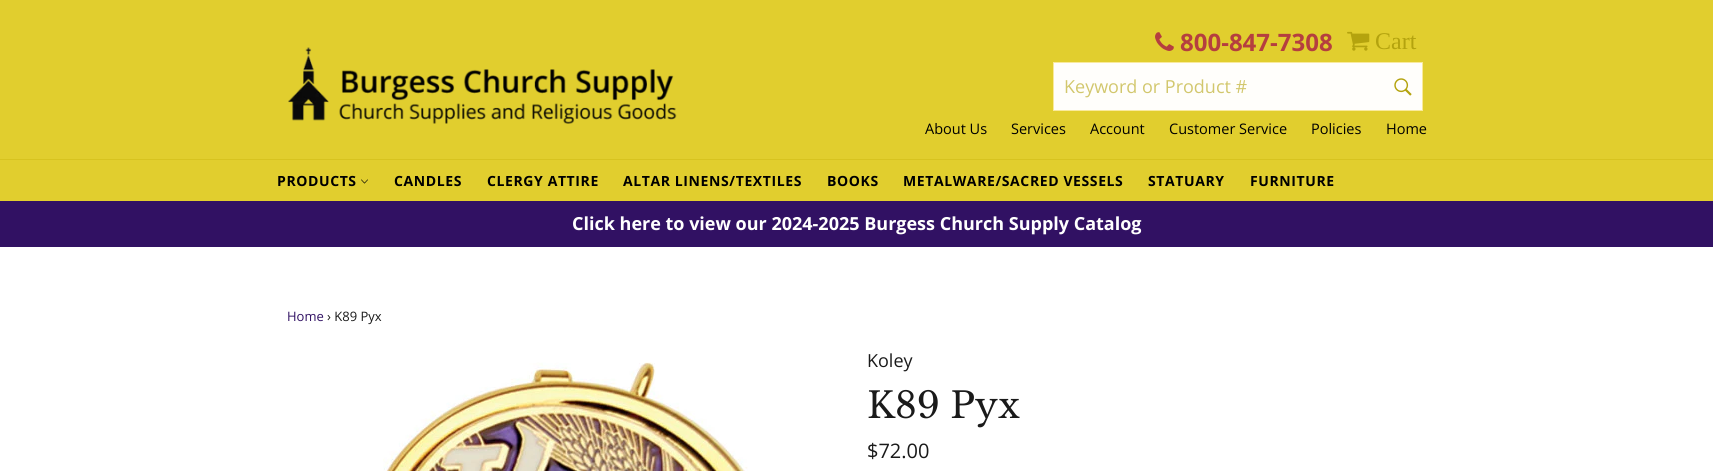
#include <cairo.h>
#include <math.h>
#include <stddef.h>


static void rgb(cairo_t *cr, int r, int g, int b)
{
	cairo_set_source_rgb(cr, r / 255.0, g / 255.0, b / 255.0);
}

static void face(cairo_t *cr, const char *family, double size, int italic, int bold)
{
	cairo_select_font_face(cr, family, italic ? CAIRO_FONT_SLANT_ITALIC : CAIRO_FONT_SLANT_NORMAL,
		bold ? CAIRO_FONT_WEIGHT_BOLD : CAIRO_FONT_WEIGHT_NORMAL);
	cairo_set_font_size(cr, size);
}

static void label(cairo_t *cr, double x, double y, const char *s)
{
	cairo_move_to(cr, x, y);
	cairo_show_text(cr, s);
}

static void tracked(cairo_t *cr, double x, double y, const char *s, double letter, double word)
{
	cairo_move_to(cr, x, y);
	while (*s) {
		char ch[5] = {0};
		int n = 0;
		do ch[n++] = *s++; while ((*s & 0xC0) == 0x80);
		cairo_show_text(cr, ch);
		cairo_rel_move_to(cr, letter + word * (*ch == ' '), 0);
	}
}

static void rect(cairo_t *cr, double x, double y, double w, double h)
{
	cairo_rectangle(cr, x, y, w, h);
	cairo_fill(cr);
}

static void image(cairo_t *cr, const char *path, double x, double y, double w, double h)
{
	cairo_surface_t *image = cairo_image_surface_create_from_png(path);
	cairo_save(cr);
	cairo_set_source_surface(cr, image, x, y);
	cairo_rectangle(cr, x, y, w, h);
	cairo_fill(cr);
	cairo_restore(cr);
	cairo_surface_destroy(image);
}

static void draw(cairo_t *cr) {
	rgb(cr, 255, 255, 255);
	cairo_paint(cr);
	rgb(cr, 225, 206, 46);
	rect(cr, 0, 0, 1713, 159);
	image(cr, "image0.png", 288, 47, 389, 77);
	image(cr, "image1.png", 1155, 32, 19, 19);
	face(cr, "Open Sans", 24, 0, 1);
	rgb(cr, 181, 63, 63);
	label(cr, 1180, 51, "800-847-7308");
	image(cr, "image2.png", 1347, 31, 23, 20);
	face(cr, "Liberation Serif", 24, 0, 0);
	rgb(cr, 180, 163, 14);
	label(cr, 1375, 49, "Cart");
	rgb(cr, 255, 254, 251);
	cairo_rectangle(cr, 1053.5, 62.5, 369, 48);
	cairo_fill_preserve(cr);
	rgb(cr, 249, 234, 156);
	cairo_set_line_width(cr, 1);
	cairo_stroke(cr);
	face(cr, "Open Sans", 18, 0, 0);
	rgb(cr, 210, 199, 109);
	label(cr, 1064, 93, "Keyword or Product #");
	image(cr, "image3.png", 1394, 78, 18, 18);
	face(cr, "Open Sans", 14.5, 0, 0);
	rgb(cr, 0, 0, 0);
	label(cr, 925, 134, "About Us");
	label(cr, 1011, 134, "Services");
	label(cr, 1090, 134, "Account");
	label(cr, 1169, 134, "Customer Service");
	label(cr, 1311, 134, "Policies");
	label(cr, 1386, 134, "Home");
	rgb(cr, 225, 206, 46);
	rect(cr, 0, 160, 1713, 41);
	rgb(cr, 215, 195, 31);
	rect(cr, 0, 159, 1713, 1);
	face(cr, "Open Sans", 14, 0, 1);
	rgb(cr, 0, 0, 0);
	tracked(cr, 277, 186, "PRODUCTS", 0.6, 0);
	image(cr, "image4.png", 361, 179, 7, 5);
	tracked(cr, 394, 186, "CANDLES", 0.6, 0);
	tracked(cr, 487, 186, "CLERGY ATTIRE", 0.6, 0);
	tracked(cr, 623, 186, "ALTAR LINENS/TEXTILES", 0.6, 0);
	tracked(cr, 827, 186, "BOOKS", 0.6, 0);
	tracked(cr, 903, 186, "METALWARE/SACRED VESSELS", 0.6, 0);
	tracked(cr, 1148, 186, "STATUARY", 0.6, 0);
	tracked(cr, 1250, 186, "FURNITURE", 0.6, 0);
	rgb(cr, 49, 17, 99);
	rect(cr, 0, 201, 1713, 46);
	face(cr, "Open Sans", 18, 0, 1);
	rgb(cr, 255, 255, 255);
	label(cr, 572, 230, "Click here to view our 2024-2025 Burgess Church Supply Catalog");
	face(cr, "Open Sans", 13, 0, 0);
	rgb(cr, 49, 17, 99);
	label(cr, 287, 321, "Home");
	rgb(cr, 26, 26, 26);
	label(cr, 327, 321, "› K89 Pyx");
	image(cr, "image5.png", 383, 362, 365, 109);
	face(cr, "Open Sans", 18, 0, 0);
	label(cr, 867, 367, "Koley");
	face(cr, "Libre Baskerville", 36, 0, 0);
	label(cr, 867, 418, "K89 Pyx");
	face(cr, "Open Sans", 20, 0, 0);
	label(cr, 867, 458, "$72.00");
}

int main(void) {
	cairo_surface_t *surface = cairo_image_surface_create(CAIRO_FORMAT_RGB24, 1713, 471);
	cairo_t *cr = cairo_create(surface);
	cairo_font_options_t *options = cairo_font_options_create();
	cairo_font_options_set_hint_metrics(options, CAIRO_HINT_METRICS_OFF);
	cairo_font_options_set_hint_style(options, CAIRO_HINT_STYLE_NONE);
	cairo_set_font_options(cr, options);
	cairo_set_miter_limit(cr, 4);
	draw(cr);
	cairo_surface_write_to_png(surface, "render.png");
	cairo_font_options_destroy(options);
	cairo_destroy(cr);
	cairo_surface_destroy(surface);
	return 0;
}
